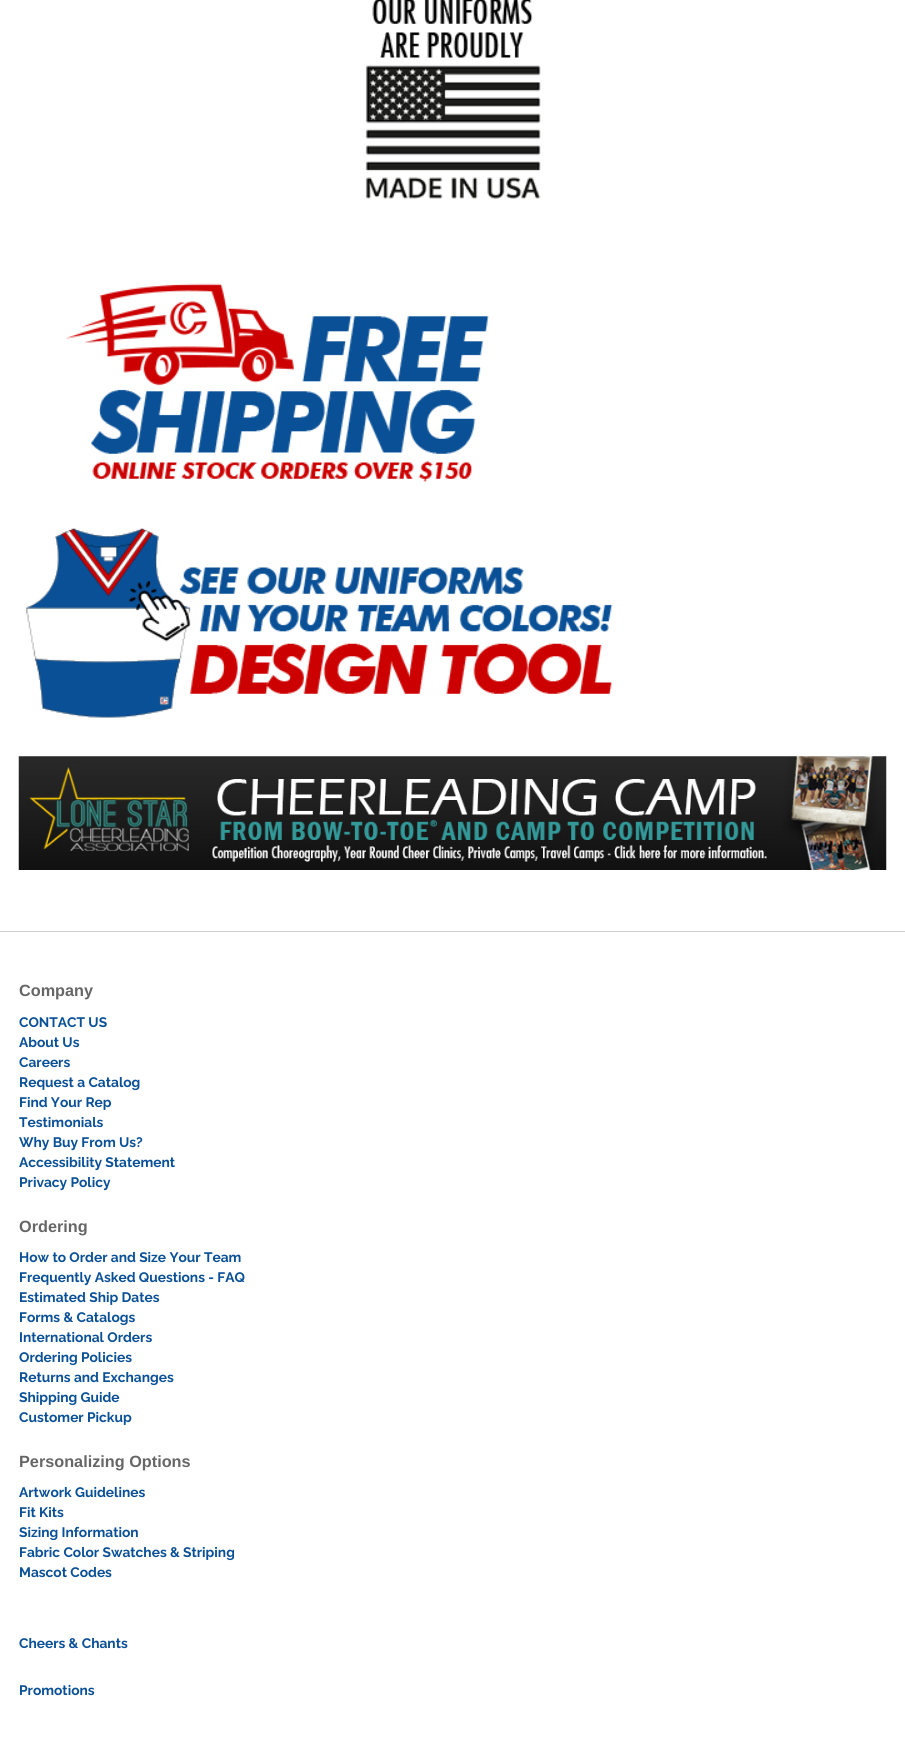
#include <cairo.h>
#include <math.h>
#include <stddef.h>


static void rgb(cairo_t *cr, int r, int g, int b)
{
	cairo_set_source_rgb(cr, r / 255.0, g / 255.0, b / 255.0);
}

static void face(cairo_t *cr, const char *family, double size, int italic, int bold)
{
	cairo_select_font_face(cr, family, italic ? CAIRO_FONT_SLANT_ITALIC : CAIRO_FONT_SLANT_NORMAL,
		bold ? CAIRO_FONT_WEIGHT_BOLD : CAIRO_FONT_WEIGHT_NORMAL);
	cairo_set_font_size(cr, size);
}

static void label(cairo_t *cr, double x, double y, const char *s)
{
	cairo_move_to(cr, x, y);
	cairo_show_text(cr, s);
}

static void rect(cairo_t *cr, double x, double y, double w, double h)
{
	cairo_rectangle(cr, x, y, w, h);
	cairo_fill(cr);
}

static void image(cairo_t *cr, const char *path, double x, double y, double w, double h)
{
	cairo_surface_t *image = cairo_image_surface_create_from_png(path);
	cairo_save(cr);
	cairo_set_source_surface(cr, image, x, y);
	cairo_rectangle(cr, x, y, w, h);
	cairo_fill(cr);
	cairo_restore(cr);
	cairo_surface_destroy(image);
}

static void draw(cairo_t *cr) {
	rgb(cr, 255, 255, 255);
	cairo_paint(cr);
	image(cr, "image0.png", 365, 0, 176, 199);
	image(cr, "image1.png", 66, 283, 423, 199);
	image(cr, "image2.png", 26, 528, 587, 190);
	image(cr, "image3.png", 18, 756, 869, 114);
	rgb(cr, 206, 206, 206);
	rect(cr, 0, 931, 905, 1);
	face(cr, "Liberation Sans", 16.25, 0, 1);
	rgb(cr, 102, 102, 102);
	label(cr, 19, 996, "Company");
	face(cr, "Raleway", 13.75, 0, 1);
	rgb(cr, 10, 80, 150);
	label(cr, 19, 1027, "CONTACT US");
	label(cr, 19, 1047, "About Us");
	label(cr, 19, 1067, "Careers");
	label(cr, 19, 1087, "Request a Catalog");
	label(cr, 19, 1107, "Find Your Rep");
	label(cr, 19, 1127, "Testimonials");
	label(cr, 19, 1147, "Why Buy From Us?");
	label(cr, 19, 1167, "Accessibility Statement");
	label(cr, 19, 1187, "Privacy Policy");
	face(cr, "Liberation Sans", 16.25, 0, 1);
	rgb(cr, 102, 102, 102);
	label(cr, 19, 1232, "Ordering");
	face(cr, "Raleway", 13.75, 0, 1);
	rgb(cr, 10, 80, 150);
	label(cr, 19, 1262, "How to Order and Size Your Team");
	label(cr, 19, 1282, "Frequently Asked Questions - FAQ");
	label(cr, 19, 1302, "Estimated Ship Dates");
	label(cr, 19, 1322, "Forms & Catalogs");
	label(cr, 19, 1342, "International Orders");
	label(cr, 19, 1362, "Ordering Policies");
	label(cr, 19, 1382, "Returns and Exchanges");
	label(cr, 19, 1402, "Shipping Guide");
	label(cr, 19, 1422, "Customer Pickup");
	face(cr, "Liberation Sans", 16.25, 0, 1);
	rgb(cr, 102, 102, 102);
	label(cr, 19, 1467, "Personalizing Options");
	face(cr, "Raleway", 13.75, 0, 1);
	rgb(cr, 10, 80, 150);
	label(cr, 19, 1497, "Artwork Guidelines");
	label(cr, 19, 1517, "Fit Kits");
	label(cr, 19, 1537, "Sizing Information");
	label(cr, 19, 1557, "Fabric Color Swatches & Striping");
	label(cr, 19, 1577, "Mascot Codes");
	label(cr, 19, 1648, "Cheers & Chants");
	label(cr, 19, 1695, "Promotions");
}

int main(void) {
	cairo_surface_t *surface = cairo_image_surface_create(CAIRO_FORMAT_RGB24, 905, 1745);
	cairo_t *cr = cairo_create(surface);
	cairo_font_options_t *options = cairo_font_options_create();
	cairo_font_options_set_hint_metrics(options, CAIRO_HINT_METRICS_OFF);
	cairo_font_options_set_hint_style(options, CAIRO_HINT_STYLE_NONE);
	cairo_set_font_options(cr, options);
	cairo_set_miter_limit(cr, 4);
	draw(cr);
	cairo_surface_write_to_png(surface, "render.png");
	cairo_font_options_destroy(options);
	cairo_destroy(cr);
	cairo_surface_destroy(surface);
	return 0;
}
